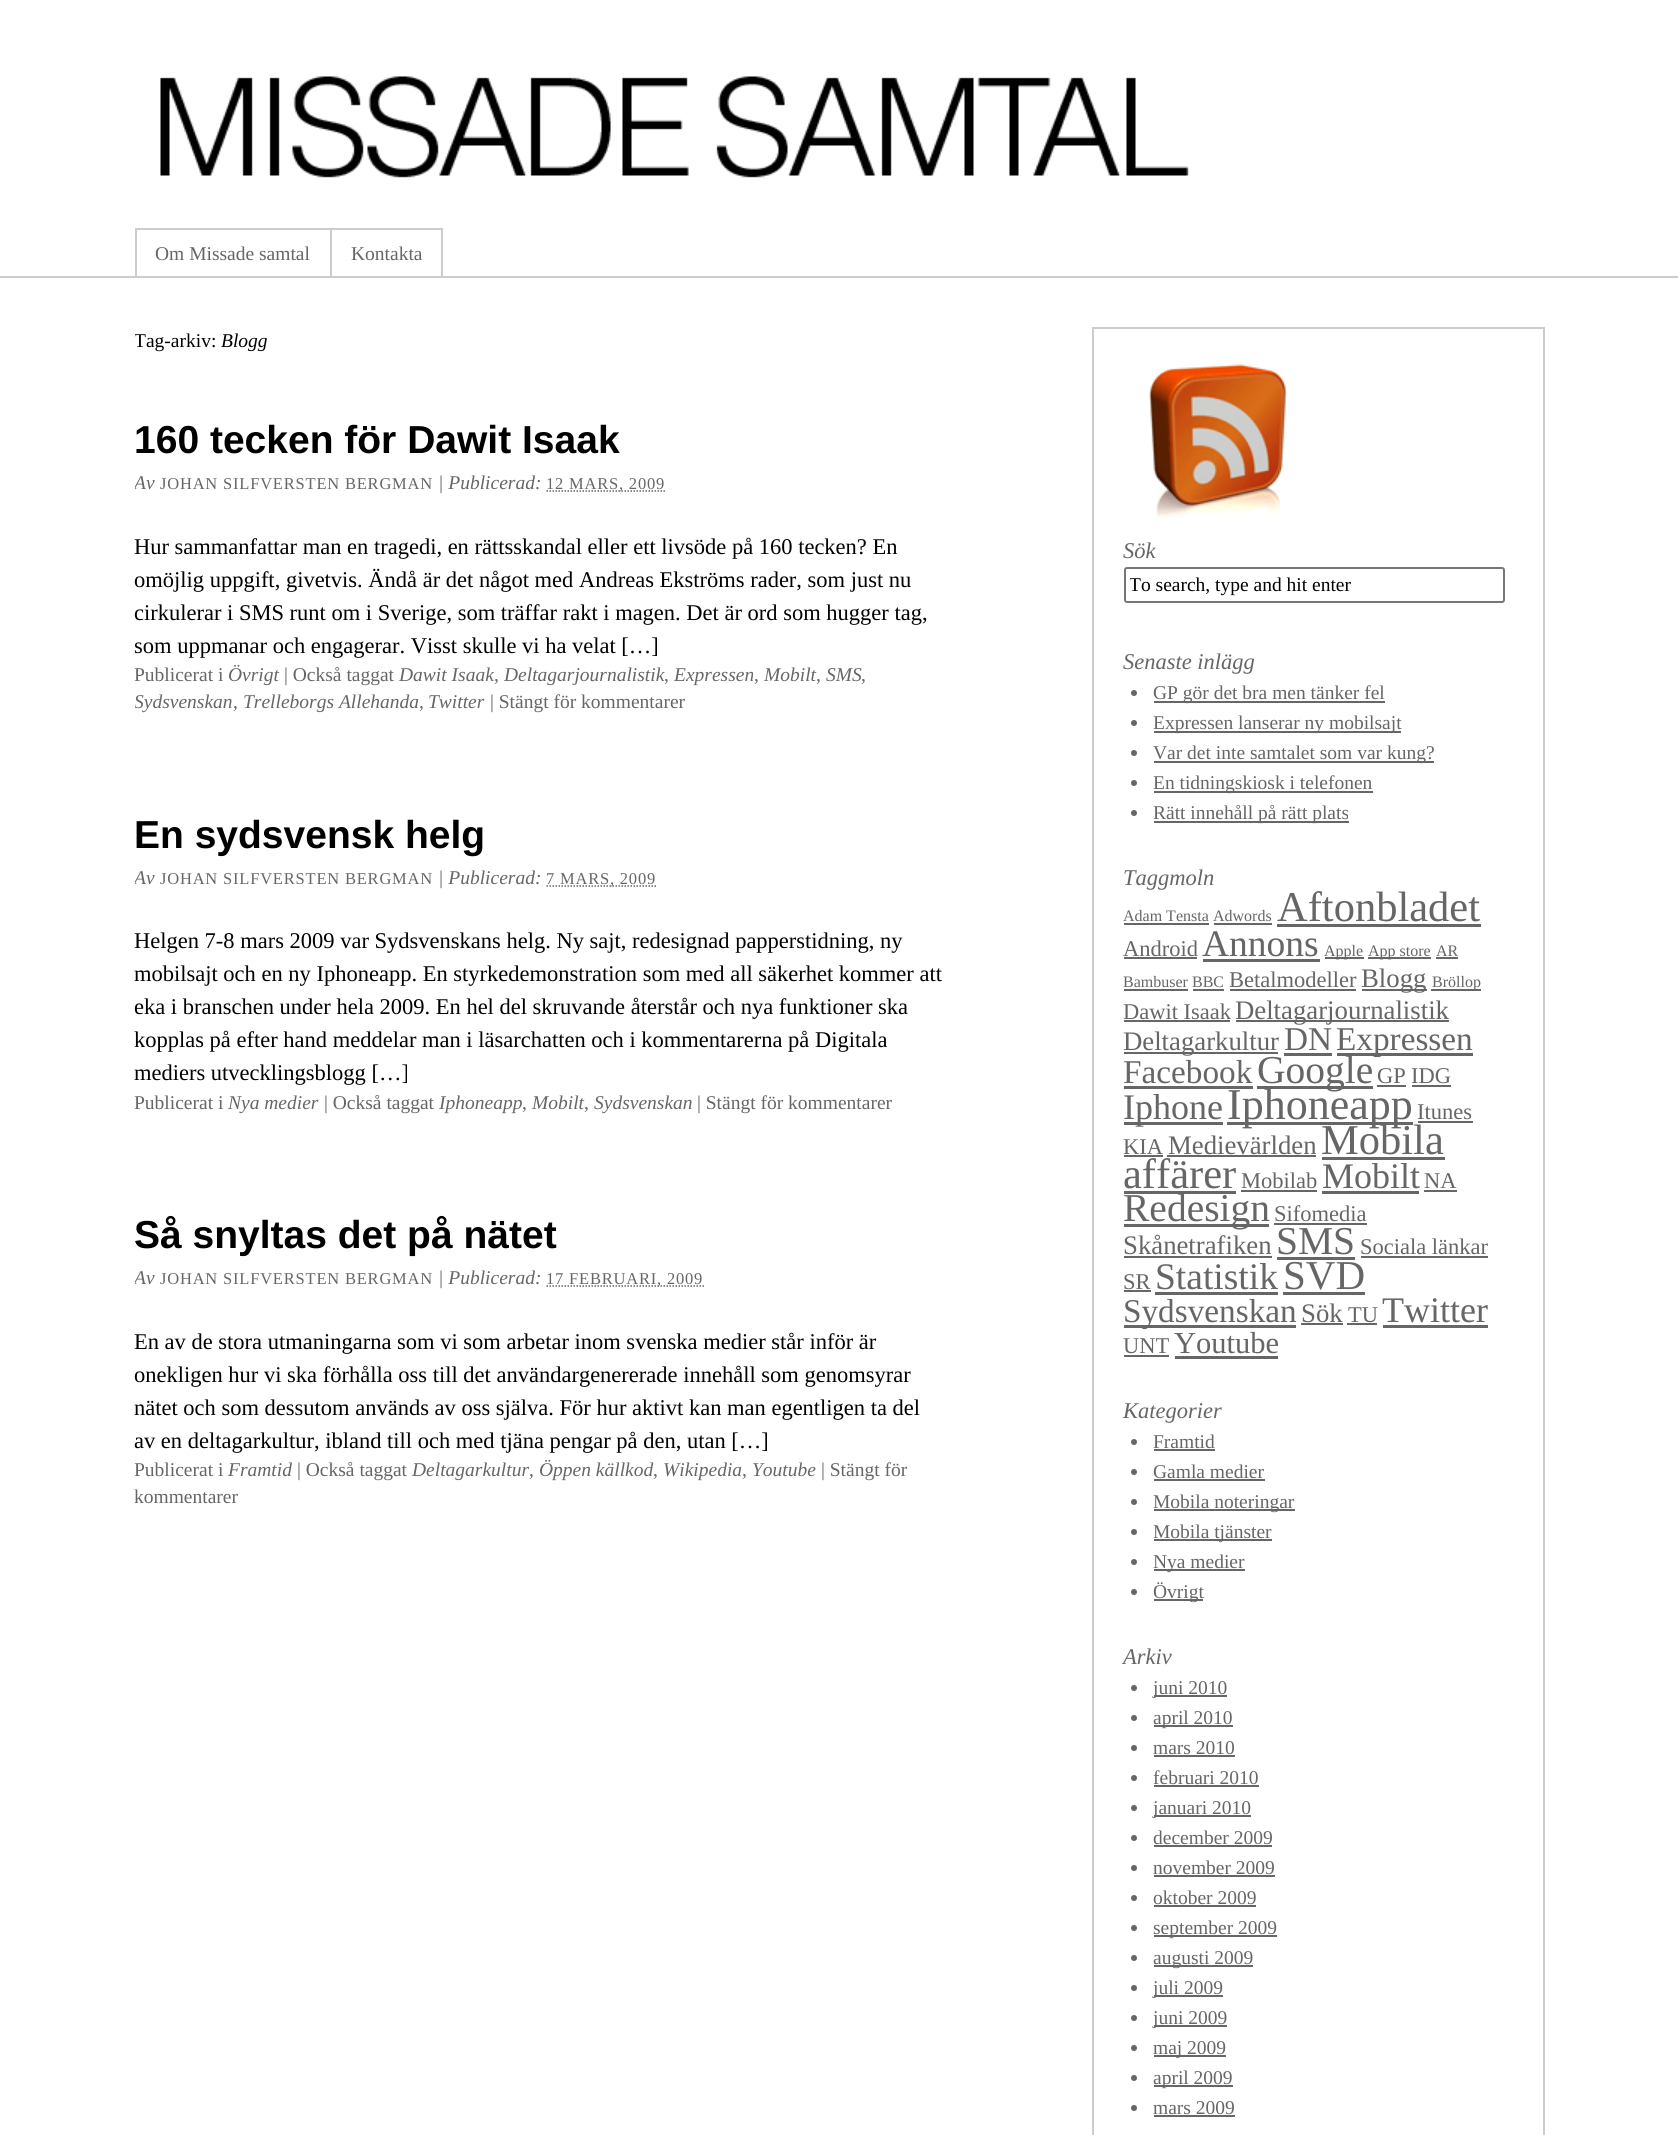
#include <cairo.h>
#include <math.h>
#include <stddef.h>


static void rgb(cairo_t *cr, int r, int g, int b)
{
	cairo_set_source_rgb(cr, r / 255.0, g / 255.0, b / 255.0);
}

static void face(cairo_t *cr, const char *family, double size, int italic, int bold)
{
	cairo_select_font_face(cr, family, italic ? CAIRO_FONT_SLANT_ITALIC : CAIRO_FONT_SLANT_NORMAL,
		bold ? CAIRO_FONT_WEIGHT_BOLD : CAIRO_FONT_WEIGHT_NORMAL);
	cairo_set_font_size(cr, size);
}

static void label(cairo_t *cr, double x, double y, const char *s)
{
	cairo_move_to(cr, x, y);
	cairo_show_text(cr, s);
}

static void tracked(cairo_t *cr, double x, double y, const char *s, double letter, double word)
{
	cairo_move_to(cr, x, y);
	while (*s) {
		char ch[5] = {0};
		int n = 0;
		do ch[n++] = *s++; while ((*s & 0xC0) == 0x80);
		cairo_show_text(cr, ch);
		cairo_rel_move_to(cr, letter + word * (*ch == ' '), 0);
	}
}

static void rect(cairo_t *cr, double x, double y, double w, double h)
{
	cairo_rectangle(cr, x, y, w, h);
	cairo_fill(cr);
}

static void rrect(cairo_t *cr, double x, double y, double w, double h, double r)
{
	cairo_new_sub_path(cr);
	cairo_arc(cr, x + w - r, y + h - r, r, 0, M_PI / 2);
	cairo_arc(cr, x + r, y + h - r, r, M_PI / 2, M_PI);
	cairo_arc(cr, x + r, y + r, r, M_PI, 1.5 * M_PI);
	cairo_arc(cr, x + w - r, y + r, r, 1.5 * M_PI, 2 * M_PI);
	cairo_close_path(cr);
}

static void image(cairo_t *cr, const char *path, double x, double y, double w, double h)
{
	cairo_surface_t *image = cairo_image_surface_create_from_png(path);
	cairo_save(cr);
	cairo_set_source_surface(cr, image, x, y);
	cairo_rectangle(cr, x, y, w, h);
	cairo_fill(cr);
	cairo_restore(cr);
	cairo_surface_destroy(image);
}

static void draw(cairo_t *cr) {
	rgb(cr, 255, 255, 255);
	cairo_paint(cr);
	image(cr, "image0.png", 160, 76, 1029, 102);
	rgb(cr, 204, 204, 204);
	rect(cr, 0, 276, 1678, 2);
	rect(cr, 441, 228, 2, 50);
	rect(cr, 135, 228, 306, 2);
	rect(cr, 135, 228, 2, 50);
	face(cr, "Liberation Serif", 19.5, 0, 0);
	rgb(cr, 102, 102, 102);
	label(cr, 155, 260, "Om Missade samtal");
	rgb(cr, 204, 204, 204);
	rect(cr, 330, 228, 2, 50);
	rgb(cr, 102, 102, 102);
	label(cr, 351, 260, "Kontakta");
	cairo_save(cr);
	cairo_rectangle(cr, 135, 327, 810, 1316);
	cairo_clip(cr);
	rgb(cr, 0, 0, 0);
	label(cr, 134, 347, "Tag-arkiv:");
	cairo_restore(cr);
	face(cr, "Liberation Serif", 19.5, 1, 0);
	rgb(cr, 0, 0, 0);
	label(cr, 221, 347, "Blogg");
	face(cr, "Liberation Sans", 39, 0, 1);
	label(cr, 134, 453, "160 tecken för Dawit Isaak");
	cairo_save(cr);
	cairo_rectangle(cr, 135, 327, 810, 1316);
	cairo_clip(cr);
	face(cr, "Liberation Serif", 19.5, 1, 0);
	rgb(cr, 102, 102, 102);
	label(cr, 134, 489, "Av");
	cairo_restore(cr);
	face(cr, "Liberation Serif", 16.5, 0, 0);
	rgb(cr, 102, 102, 102);
	tracked(cr, 160, 489, "JOHAN SILFVERSTEN BERGMAN", 0.8, 0);
	face(cr, "Liberation Serif", 19.5, 1, 0);
	label(cr, 438, 489, "| Publicerad:");
	cairo_new_path(cr);
	cairo_move_to(cr, 546.5, 491);
	cairo_line_to(cr, 666, 491);
	cairo_set_line_width(cr, 1.5);
	cairo_set_dash(cr, (double[]){1.5, 1.5}, 2, 0);
	cairo_stroke(cr);
	face(cr, "Liberation Serif", 16.5, 0, 0);
	tracked(cr, 546, 489, "12 MARS, 2009", 0.8, 0);
	face(cr, "Liberation Serif", 22.5, 0, 0);
	rgb(cr, 0, 0, 0);
	label(cr, 134, 554, "Hur sammanfattar man en tragedi, en rättsskandal eller ett livsöde på 160 tecken? En");
	label(cr, 134, 587, "omöjlig uppgift, givetvis. Ändå är det något med Andreas Ekströms rader, som just nu");
	label(cr, 134, 620, "cirkulerar i SMS runt om i Sverige, som träffar rakt i magen. Det är ord som hugger tag,");
	label(cr, 134, 653, "som uppmanar och engagerar. Visst skulle vi ha velat […]");
	face(cr, "Liberation Serif", 19.5, 0, 0);
	rgb(cr, 102, 102, 102);
	label(cr, 134, 681, "Publicerat i");
	face(cr, "Liberation Serif", 19.5, 1, 0);
	label(cr, 228, 681, "Övrigt");
	face(cr, "Liberation Serif", 19.5, 0, 0);
	label(cr, 284, 681, "| Också taggat");
	face(cr, "Liberation Serif", 19.5, 1, 0);
	label(cr, 399, 681, "Dawit Isaak");
	face(cr, "Liberation Serif", 19.5, 0, 0);
	label(cr, 494, 681, ",");
	face(cr, "Liberation Serif", 19.5, 1, 0);
	label(cr, 504, 681, "Deltagarjournalistik");
	face(cr, "Liberation Serif", 19.5, 0, 0);
	label(cr, 664, 681, ",");
	face(cr, "Liberation Serif", 19.5, 1, 0);
	label(cr, 674, 681, "Expressen");
	face(cr, "Liberation Serif", 19.5, 0, 0);
	label(cr, 754, 681, ",");
	face(cr, "Liberation Serif", 19.5, 1, 0);
	label(cr, 764, 681, "Mobilt");
	face(cr, "Liberation Serif", 19.5, 0, 0);
	label(cr, 816, 681, ",");
	face(cr, "Liberation Serif", 19.5, 1, 0);
	label(cr, 826, 681, "SMS");
	face(cr, "Liberation Serif", 19.5, 0, 0);
	label(cr, 861, 681, ",");
	cairo_save(cr);
	cairo_rectangle(cr, 135, 327, 810, 1316);
	cairo_clip(cr);
	face(cr, "Liberation Serif", 19.5, 1, 0);
	label(cr, 134, 708, "Sydsvenskan");
	cairo_restore(cr);
	label(cr, 233, 708, ",");
	face(cr, "Liberation Serif", 19.5, 1, 0);
	label(cr, 243, 708, "Trelleborgs Allehanda");
	face(cr, "Liberation Serif", 19.5, 0, 0);
	label(cr, 419, 708, ",");
	face(cr, "Liberation Serif", 19.5, 1, 0);
	label(cr, 428, 708, "Twitter");
	face(cr, "Liberation Serif", 19.5, 0, 0);
	label(cr, 490, 708, "| Stängt för kommentarer");
	face(cr, "Liberation Sans", 39, 0, 1);
	rgb(cr, 0, 0, 0);
	label(cr, 134, 848, "En sydsvensk helg");
	cairo_save(cr);
	cairo_rectangle(cr, 135, 327, 810, 1316);
	cairo_clip(cr);
	face(cr, "Liberation Serif", 19.5, 1, 0);
	rgb(cr, 102, 102, 102);
	label(cr, 134, 884, "Av");
	cairo_restore(cr);
	face(cr, "Liberation Serif", 16.5, 0, 0);
	rgb(cr, 102, 102, 102);
	tracked(cr, 160, 884, "JOHAN SILFVERSTEN BERGMAN", 0.8, 0);
	face(cr, "Liberation Serif", 19.5, 1, 0);
	label(cr, 438, 884, "| Publicerad:");
	cairo_new_path(cr);
	cairo_move_to(cr, 546.5, 886);
	cairo_line_to(cr, 657, 886);
	cairo_stroke(cr);
	face(cr, "Liberation Serif", 16.5, 0, 0);
	tracked(cr, 546, 884, "7 MARS, 2009", 0.8, 0);
	face(cr, "Liberation Serif", 22.5, 0, 0);
	rgb(cr, 0, 0, 0);
	label(cr, 134, 948, "Helgen 7-8 mars 2009 var Sydsvenskans helg. Ny sajt, redesignad papperstidning, ny");
	label(cr, 134, 981, "mobilsajt och en ny Iphoneapp. En styrkedemonstration som med all säkerhet kommer att");
	label(cr, 134, 1014, "eka i branschen under hela 2009. En hel del skruvande återstår och nya funktioner ska");
	label(cr, 134, 1047, "kopplas på efter hand meddelar man i läsarchatten och i kommentarerna på Digitala");
	label(cr, 134, 1080, "mediers utvecklingsblogg […]");
	face(cr, "Liberation Serif", 19.5, 0, 0);
	rgb(cr, 102, 102, 102);
	label(cr, 134, 1109, "Publicerat i");
	face(cr, "Liberation Serif", 19.5, 1, 0);
	label(cr, 228, 1109, "Nya medier");
	face(cr, "Liberation Serif", 19.5, 0, 0);
	label(cr, 324, 1109, "| Också taggat");
	face(cr, "Liberation Serif", 19.5, 1, 0);
	label(cr, 439, 1109, "Iphoneapp");
	face(cr, "Liberation Serif", 19.5, 0, 0);
	label(cr, 522, 1109, ",");
	face(cr, "Liberation Serif", 19.5, 1, 0);
	label(cr, 532, 1109, "Mobilt");
	face(cr, "Liberation Serif", 19.5, 0, 0);
	label(cr, 584, 1109, ",");
	face(cr, "Liberation Serif", 19.5, 1, 0);
	label(cr, 594, 1109, "Sydsvenskan");
	face(cr, "Liberation Serif", 19.5, 0, 0);
	label(cr, 697, 1109, "| Stängt för kommentarer");
	face(cr, "Liberation Sans", 39, 0, 1);
	rgb(cr, 0, 0, 0);
	label(cr, 134, 1248, "Så snyltas det på nätet");
	cairo_save(cr);
	cairo_rectangle(cr, 135, 327, 810, 1316);
	cairo_clip(cr);
	face(cr, "Liberation Serif", 19.5, 1, 0);
	rgb(cr, 102, 102, 102);
	label(cr, 134, 1284, "Av");
	cairo_restore(cr);
	face(cr, "Liberation Serif", 16.5, 0, 0);
	rgb(cr, 102, 102, 102);
	tracked(cr, 160, 1284, "JOHAN SILFVERSTEN BERGMAN", 0.8, 0);
	face(cr, "Liberation Serif", 19.5, 1, 0);
	label(cr, 438, 1284, "| Publicerad:");
	cairo_new_path(cr);
	cairo_move_to(cr, 546.5, 1286);
	cairo_line_to(cr, 704, 1286);
	cairo_stroke(cr);
	face(cr, "Liberation Serif", 16.5, 0, 0);
	tracked(cr, 546, 1284, "17 FEBRUARI, 2009", 0.8, 0);
	face(cr, "Liberation Serif", 22.5, 0, 0);
	rgb(cr, 0, 0, 0);
	label(cr, 134, 1349, "En av de stora utmaningarna som vi som arbetar inom svenska medier står inför är");
	label(cr, 134, 1382, "onekligen hur vi ska förhålla oss till det användargenererade innehåll som genomsyrar");
	label(cr, 134, 1415, "nätet och som dessutom används av oss själva. För hur aktivt kan man egentligen ta del");
	label(cr, 134, 1448, "av en deltagarkultur, ibland till och med tjäna pengar på den, utan […]");
	face(cr, "Liberation Serif", 19.5, 0, 0);
	rgb(cr, 102, 102, 102);
	label(cr, 134, 1476, "Publicerat i");
	face(cr, "Liberation Serif", 19.5, 1, 0);
	label(cr, 228, 1476, "Framtid");
	face(cr, "Liberation Serif", 19.5, 0, 0);
	label(cr, 297, 1476, "| Också taggat");
	face(cr, "Liberation Serif", 19.5, 1, 0);
	label(cr, 412, 1476, "Deltagarkultur");
	face(cr, "Liberation Serif", 19.5, 0, 0);
	label(cr, 529, 1476, ",");
	face(cr, "Liberation Serif", 19.5, 1, 0);
	label(cr, 539, 1476, "Öppen källkod");
	face(cr, "Liberation Serif", 19.5, 0, 0);
	label(cr, 653, 1476, ",");
	face(cr, "Liberation Serif", 19.5, 1, 0);
	label(cr, 663, 1476, "Wikipedia");
	face(cr, "Liberation Serif", 19.5, 0, 0);
	label(cr, 742, 1476, ",");
	face(cr, "Liberation Serif", 19.5, 1, 0);
	label(cr, 752, 1476, "Youtube");
	face(cr, "Liberation Serif", 19.5, 0, 0);
	label(cr, 821, 1476, "| Stängt för");
	label(cr, 134, 1503, "kommentarer");
	cairo_rectangle(cr, 1093, 328, 451, 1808);
	rgb(cr, 204, 204, 204);
	cairo_set_line_width(cr, 2);
	cairo_set_dash(cr, NULL, 0, 0);
	cairo_stroke(cr);
	image(cr, "image1.png", 1148, 363, 139, 156);
	face(cr, "Liberation Serif", 22.5, 1, 0);
	rgb(cr, 102, 102, 102);
	label(cr, 1123, 558, "Sök");
	rrect(cr, 1125, 568, 379, 34, 2);
	rgb(cr, 118, 118, 118);
	cairo_stroke(cr);
	cairo_save(cr);
	cairo_rectangle(cr, 1130, 572, 369, 27);
	cairo_clip(cr);
	face(cr, "Liberation Serif", 19.5, 0, 0);
	rgb(cr, 0, 0, 0);
	label(cr, 1129, 591, "To search, type and hit enter");
	cairo_restore(cr);
	rgb(cr, 102, 102, 102);
	label(cr, 1123, 669, "Senaste inlägg");
	cairo_new_path(cr);
	cairo_arc(cr, 1134, 693, 3, 0, 2 * M_PI);
	cairo_fill(cr);
	rect(cr, 1154, 701, 231, 2);
	face(cr, "Liberation Serif", 19.5, 0, 0);
	label(cr, 1153, 699, "GP gör det bra men tänker fel");
	cairo_new_path(cr);
	cairo_arc(cr, 1134, 723, 3, 0, 2 * M_PI);
	cairo_fill(cr);
	rect(cr, 1154, 731, 247, 2);
	label(cr, 1153, 729, "Expressen lanserar ny mobilsajt");
	cairo_new_path(cr);
	cairo_arc(cr, 1134, 753, 3, 0, 2 * M_PI);
	cairo_fill(cr);
	rect(cr, 1154, 761, 280, 2);
	label(cr, 1153, 759, "Var det inte samtalet som var kung?");
	cairo_new_path(cr);
	cairo_arc(cr, 1134, 783, 3, 0, 2 * M_PI);
	cairo_fill(cr);
	rect(cr, 1154, 791, 219, 2);
	label(cr, 1153, 789, "En tidningskiosk i telefonen");
	cairo_new_path(cr);
	cairo_arc(cr, 1134, 813, 3, 0, 2 * M_PI);
	cairo_fill(cr);
	rect(cr, 1154, 821, 195, 2);
	label(cr, 1153, 819, "Rätt innehåll på rätt plats");
	face(cr, "Liberation Serif", 22.5, 1, 0);
	label(cr, 1123, 885, "Taggmoln");
	face(cr, "Liberation Serif", 16, 0, 0);
	label(cr, 1123, 921, "Adam Tensta");
	rect(cr, 1124, 923, 85, 2);
	label(cr, 1213, 921, "Adwords");
	rect(cr, 1214, 923, 58, 2);
	face(cr, "Liberation Serif", 42.5, 0, 0);
	label(cr, 1277, 921, "Aftonbladet");
	rect(cr, 1277, 924, 204, 3);
	face(cr, "Liberation Serif", 22.5, 0, 0);
	label(cr, 1123, 956, "Android");
	rect(cr, 1124, 957, 73, 2);
	face(cr, "Liberation Serif", 37.5, 0, 0);
	label(cr, 1202, 956, "Annons");
	rect(cr, 1203, 959, 117, 3);
	rect(cr, 1325, 957, 39, 2);
	face(cr, "Liberation Serif", 16, 0, 0);
	label(cr, 1324, 956, "Apple");
	rect(cr, 1368, 957, 63, 2);
	label(cr, 1368, 956, "App store");
	label(cr, 1436, 956, "AR");
	rect(cr, 1436, 957, 22, 2);
	label(cr, 1123, 987, "Bambuser");
	rect(cr, 1124, 989, 64, 2);
	label(cr, 1192, 987, "BBC");
	rect(cr, 1193, 989, 31, 2);
	face(cr, "Liberation Serif", 22.5, 0, 0);
	label(cr, 1229, 987, "Betalmodeller");
	rect(cr, 1230, 989, 126, 2);
	rect(cr, 1362, 989, 65, 2);
	face(cr, "Liberation Serif", 26.75, 0, 0);
	label(cr, 1361, 987, "Blogg");
	rect(cr, 1431, 989, 50, 2);
	face(cr, "Liberation Serif", 16, 0, 0);
	label(cr, 1432, 987, "Bröllop");
	face(cr, "Liberation Serif", 22.5, 0, 0);
	label(cr, 1123, 1019, "Dawit Isaak");
	rect(cr, 1124, 1020, 106, 2);
	rect(cr, 1236, 1020, 213, 2);
	face(cr, "Liberation Serif", 26.75, 0, 0);
	label(cr, 1235, 1019, "Deltagarjournalistik");
	rect(cr, 1124, 1052, 154, 2);
	label(cr, 1123, 1050, "Deltagarkultur");
	face(cr, "Liberation Serif", 33.25, 0, 0);
	label(cr, 1284, 1050, "DN");
	rect(cr, 1284, 1053, 48, 3);
	rect(cr, 1337, 1053, 136, 3);
	label(cr, 1336, 1050, "Expressen");
	label(cr, 1123, 1083, "Facebook");
	rect(cr, 1124, 1086, 129, 3);
	rect(cr, 1257, 1086, 116, 3);
	face(cr, "Liberation Serif", 39.5, 0, 0);
	label(cr, 1257, 1083, "Google");
	face(cr, "Liberation Serif", 22.5, 0, 0);
	label(cr, 1377, 1083, "GP");
	rect(cr, 1377, 1085, 29, 2);
	label(cr, 1411, 1083, "IDG");
	rect(cr, 1412, 1085, 39, 2);
	rect(cr, 1124, 1122, 99, 3);
	face(cr, "Liberation Serif", 36, 0, 0);
	label(cr, 1123, 1119, "Iphone");
	rect(cr, 1227, 1122, 186, 3);
	face(cr, "Liberation Serif", 44, 0, 0);
	label(cr, 1227, 1119, "Iphoneapp");
	face(cr, "Liberation Serif", 22.5, 0, 0);
	label(cr, 1417, 1119, "Itunes");
	rect(cr, 1418, 1121, 55, 2);
	label(cr, 1123, 1154, "KIA");
	rect(cr, 1124, 1155, 39, 2);
	face(cr, "Liberation Serif", 26.75, 0, 0);
	label(cr, 1168, 1154, "Medievärlden");
	rect(cr, 1167, 1155, 149, 2);
	face(cr, "Liberation Serif", 42.5, 0, 0);
	label(cr, 1321, 1154, "Mobila");
	rect(cr, 1322, 1157, 123, 3);
	label(cr, 1123, 1188, "affärer");
	rect(cr, 1124, 1191, 112, 3);
	face(cr, "Liberation Serif", 22.5, 0, 0);
	label(cr, 1241, 1188, "Mobilab");
	rect(cr, 1241, 1190, 76, 2);
	face(cr, "Liberation Serif", 36, 0, 0);
	label(cr, 1322, 1188, "Mobilt");
	rect(cr, 1322, 1191, 97, 3);
	face(cr, "Liberation Serif", 22.5, 0, 0);
	label(cr, 1424, 1188, "NA");
	rect(cr, 1424, 1190, 33, 2);
	rect(cr, 1124, 1224, 145, 3);
	face(cr, "Liberation Serif", 39.5, 0, 0);
	label(cr, 1123, 1221, "Redesign");
	face(cr, "Liberation Serif", 22.5, 0, 0);
	label(cr, 1274, 1221, "Sifomedia");
	rect(cr, 1274, 1223, 93, 2);
	face(cr, "Liberation Serif", 26.75, 0, 0);
	label(cr, 1123, 1254, "Skånetrafiken");
	rect(cr, 1124, 1256, 148, 2);
	face(cr, "Liberation Serif", 39.5, 0, 0);
	label(cr, 1276, 1254, "SMS");
	rect(cr, 1277, 1257, 78, 3);
	face(cr, "Liberation Serif", 22.5, 0, 0);
	label(cr, 1360, 1254, "Sociala länkar");
	rect(cr, 1361, 1256, 127, 2);
	label(cr, 1123, 1289, "SR");
	rect(cr, 1124, 1290, 27, 2);
	face(cr, "Liberation Serif", 37.5, 0, 0);
	label(cr, 1155, 1289, "Statistik");
	rect(cr, 1155, 1292, 123, 3);
	face(cr, "Liberation Serif", 41, 0, 0);
	label(cr, 1283, 1289, "SVD");
	rect(cr, 1283, 1292, 82, 3);
	rect(cr, 1124, 1325, 172, 3);
	face(cr, "Liberation Serif", 33.25, 0, 0);
	label(cr, 1123, 1322, "Sydsvenskan");
	face(cr, "Liberation Serif", 26.75, 0, 0);
	label(cr, 1301, 1322, "Sök");
	rect(cr, 1301, 1323, 42, 2);
	face(cr, "Liberation Serif", 22.5, 0, 0);
	label(cr, 1348, 1322, "TU");
	rect(cr, 1347, 1323, 30, 2);
	face(cr, "Liberation Serif", 36, 0, 0);
	label(cr, 1382, 1322, "Twitter");
	rect(cr, 1383, 1325, 105, 3);
	face(cr, "Liberation Serif", 22.5, 0, 0);
	label(cr, 1123, 1353, "UNT");
	rect(cr, 1124, 1355, 45, 2);
	face(cr, "Liberation Serif", 30.5, 0, 0);
	label(cr, 1174, 1353, "Youtube");
	rect(cr, 1175, 1356, 103, 3);
	face(cr, "Liberation Serif", 22.5, 1, 0);
	label(cr, 1123, 1418, "Kategorier");
	cairo_new_path(cr);
	cairo_arc(cr, 1134, 1442, 3, 0, 2 * M_PI);
	cairo_fill(cr);
	face(cr, "Liberation Serif", 19.5, 0, 0);
	label(cr, 1153, 1448, "Framtid");
	rect(cr, 1154, 1449, 61, 2);
	cairo_new_path(cr);
	cairo_arc(cr, 1134, 1472, 3, 0, 2 * M_PI);
	cairo_fill(cr);
	label(cr, 1153, 1478, "Gamla medier");
	rect(cr, 1154, 1479, 111, 2);
	cairo_new_path(cr);
	cairo_arc(cr, 1134, 1502, 3, 0, 2 * M_PI);
	cairo_fill(cr);
	rect(cr, 1154, 1509, 141, 2);
	label(cr, 1153, 1508, "Mobila noteringar");
	cairo_new_path(cr);
	cairo_arc(cr, 1134, 1532, 3, 0, 2 * M_PI);
	cairo_fill(cr);
	rect(cr, 1154, 1539, 118, 2);
	label(cr, 1153, 1538, "Mobila tjänster");
	cairo_new_path(cr);
	cairo_arc(cr, 1134, 1562, 3, 0, 2 * M_PI);
	cairo_fill(cr);
	rect(cr, 1154, 1569, 91, 2);
	label(cr, 1153, 1568, "Nya medier");
	cairo_new_path(cr);
	cairo_arc(cr, 1134, 1592, 3, 0, 2 * M_PI);
	cairo_fill(cr);
	rect(cr, 1154, 1599, 49, 2);
	label(cr, 1153, 1598, "Övrigt");
	face(cr, "Liberation Serif", 22.5, 1, 0);
	label(cr, 1123, 1664, "Arkiv");
	cairo_new_path(cr);
	cairo_arc(cr, 1134, 1688, 3, 0, 2 * M_PI);
	cairo_fill(cr);
	rect(cr, 1154, 1695, 73, 2);
	face(cr, "Liberation Serif", 19.5, 0, 0);
	label(cr, 1153, 1694, "juni 2010");
	cairo_new_path(cr);
	cairo_arc(cr, 1134, 1718, 3, 0, 2 * M_PI);
	cairo_fill(cr);
	rect(cr, 1154, 1725, 79, 2);
	label(cr, 1153, 1724, "april 2010");
	cairo_new_path(cr);
	cairo_arc(cr, 1134, 1748, 3, 0, 2 * M_PI);
	cairo_fill(cr);
	label(cr, 1153, 1754, "mars 2010");
	rect(cr, 1154, 1755, 81, 2);
	cairo_new_path(cr);
	cairo_arc(cr, 1134, 1778, 3, 0, 2 * M_PI);
	cairo_fill(cr);
	label(cr, 1153, 1784, "februari 2010");
	rect(cr, 1154, 1785, 105, 2);
	cairo_new_path(cr);
	cairo_arc(cr, 1134, 1808, 3, 0, 2 * M_PI);
	cairo_fill(cr);
	rect(cr, 1154, 1815, 97, 2);
	label(cr, 1153, 1814, "januari 2010");
	cairo_new_path(cr);
	cairo_arc(cr, 1134, 1838, 3, 0, 2 * M_PI);
	cairo_fill(cr);
	label(cr, 1153, 1844, "december 2009");
	rect(cr, 1154, 1845, 118, 2);
	cairo_new_path(cr);
	cairo_arc(cr, 1134, 1868, 3, 0, 2 * M_PI);
	cairo_fill(cr);
	label(cr, 1153, 1874, "november 2009");
	rect(cr, 1154, 1875, 121, 2);
	cairo_new_path(cr);
	cairo_arc(cr, 1134, 1898, 3, 0, 2 * M_PI);
	cairo_fill(cr);
	label(cr, 1153, 1904, "oktober 2009");
	rect(cr, 1154, 1905, 102, 2);
	cairo_new_path(cr);
	cairo_arc(cr, 1134, 1928, 3, 0, 2 * M_PI);
	cairo_fill(cr);
	rect(cr, 1154, 1935, 123, 2);
	label(cr, 1153, 1934, "september 2009");
	cairo_new_path(cr);
	cairo_arc(cr, 1134, 1958, 3, 0, 2 * M_PI);
	cairo_fill(cr);
	rect(cr, 1154, 1965, 99, 2);
	label(cr, 1153, 1964, "augusti 2009");
	cairo_new_path(cr);
	cairo_arc(cr, 1134, 1988, 3, 0, 2 * M_PI);
	cairo_fill(cr);
	rect(cr, 1154, 1995, 69, 2);
	label(cr, 1153, 1994, "juli 2009");
	cairo_new_path(cr);
	cairo_arc(cr, 1134, 2018, 3, 0, 2 * M_PI);
	cairo_fill(cr);
	rect(cr, 1154, 2025, 73, 2);
	label(cr, 1153, 2024, "juni 2009");
	cairo_new_path(cr);
	cairo_arc(cr, 1134, 2048, 3, 0, 2 * M_PI);
	cairo_fill(cr);
	rect(cr, 1154, 2055, 72, 2);
	label(cr, 1153, 2054, "maj 2009");
	cairo_new_path(cr);
	cairo_arc(cr, 1134, 2078, 3, 0, 2 * M_PI);
	cairo_fill(cr);
	rect(cr, 1154, 2085, 79, 2);
	label(cr, 1153, 2084, "april 2009");
	cairo_new_path(cr);
	cairo_arc(cr, 1134, 2108, 3, 0, 2 * M_PI);
	cairo_fill(cr);
	label(cr, 1153, 2114, "mars 2009");
	rect(cr, 1154, 2115, 81, 2);
}

int main(void) {
	cairo_surface_t *surface = cairo_image_surface_create(CAIRO_FORMAT_RGB24, 1678, 2135);
	cairo_t *cr = cairo_create(surface);
	cairo_font_options_t *options = cairo_font_options_create();
	cairo_font_options_set_hint_metrics(options, CAIRO_HINT_METRICS_OFF);
	cairo_font_options_set_hint_style(options, CAIRO_HINT_STYLE_NONE);
	cairo_set_font_options(cr, options);
	cairo_set_miter_limit(cr, 4);
	draw(cr);
	cairo_surface_write_to_png(surface, "render.png");
	cairo_font_options_destroy(options);
	cairo_destroy(cr);
	cairo_surface_destroy(surface);
	return 0;
}
